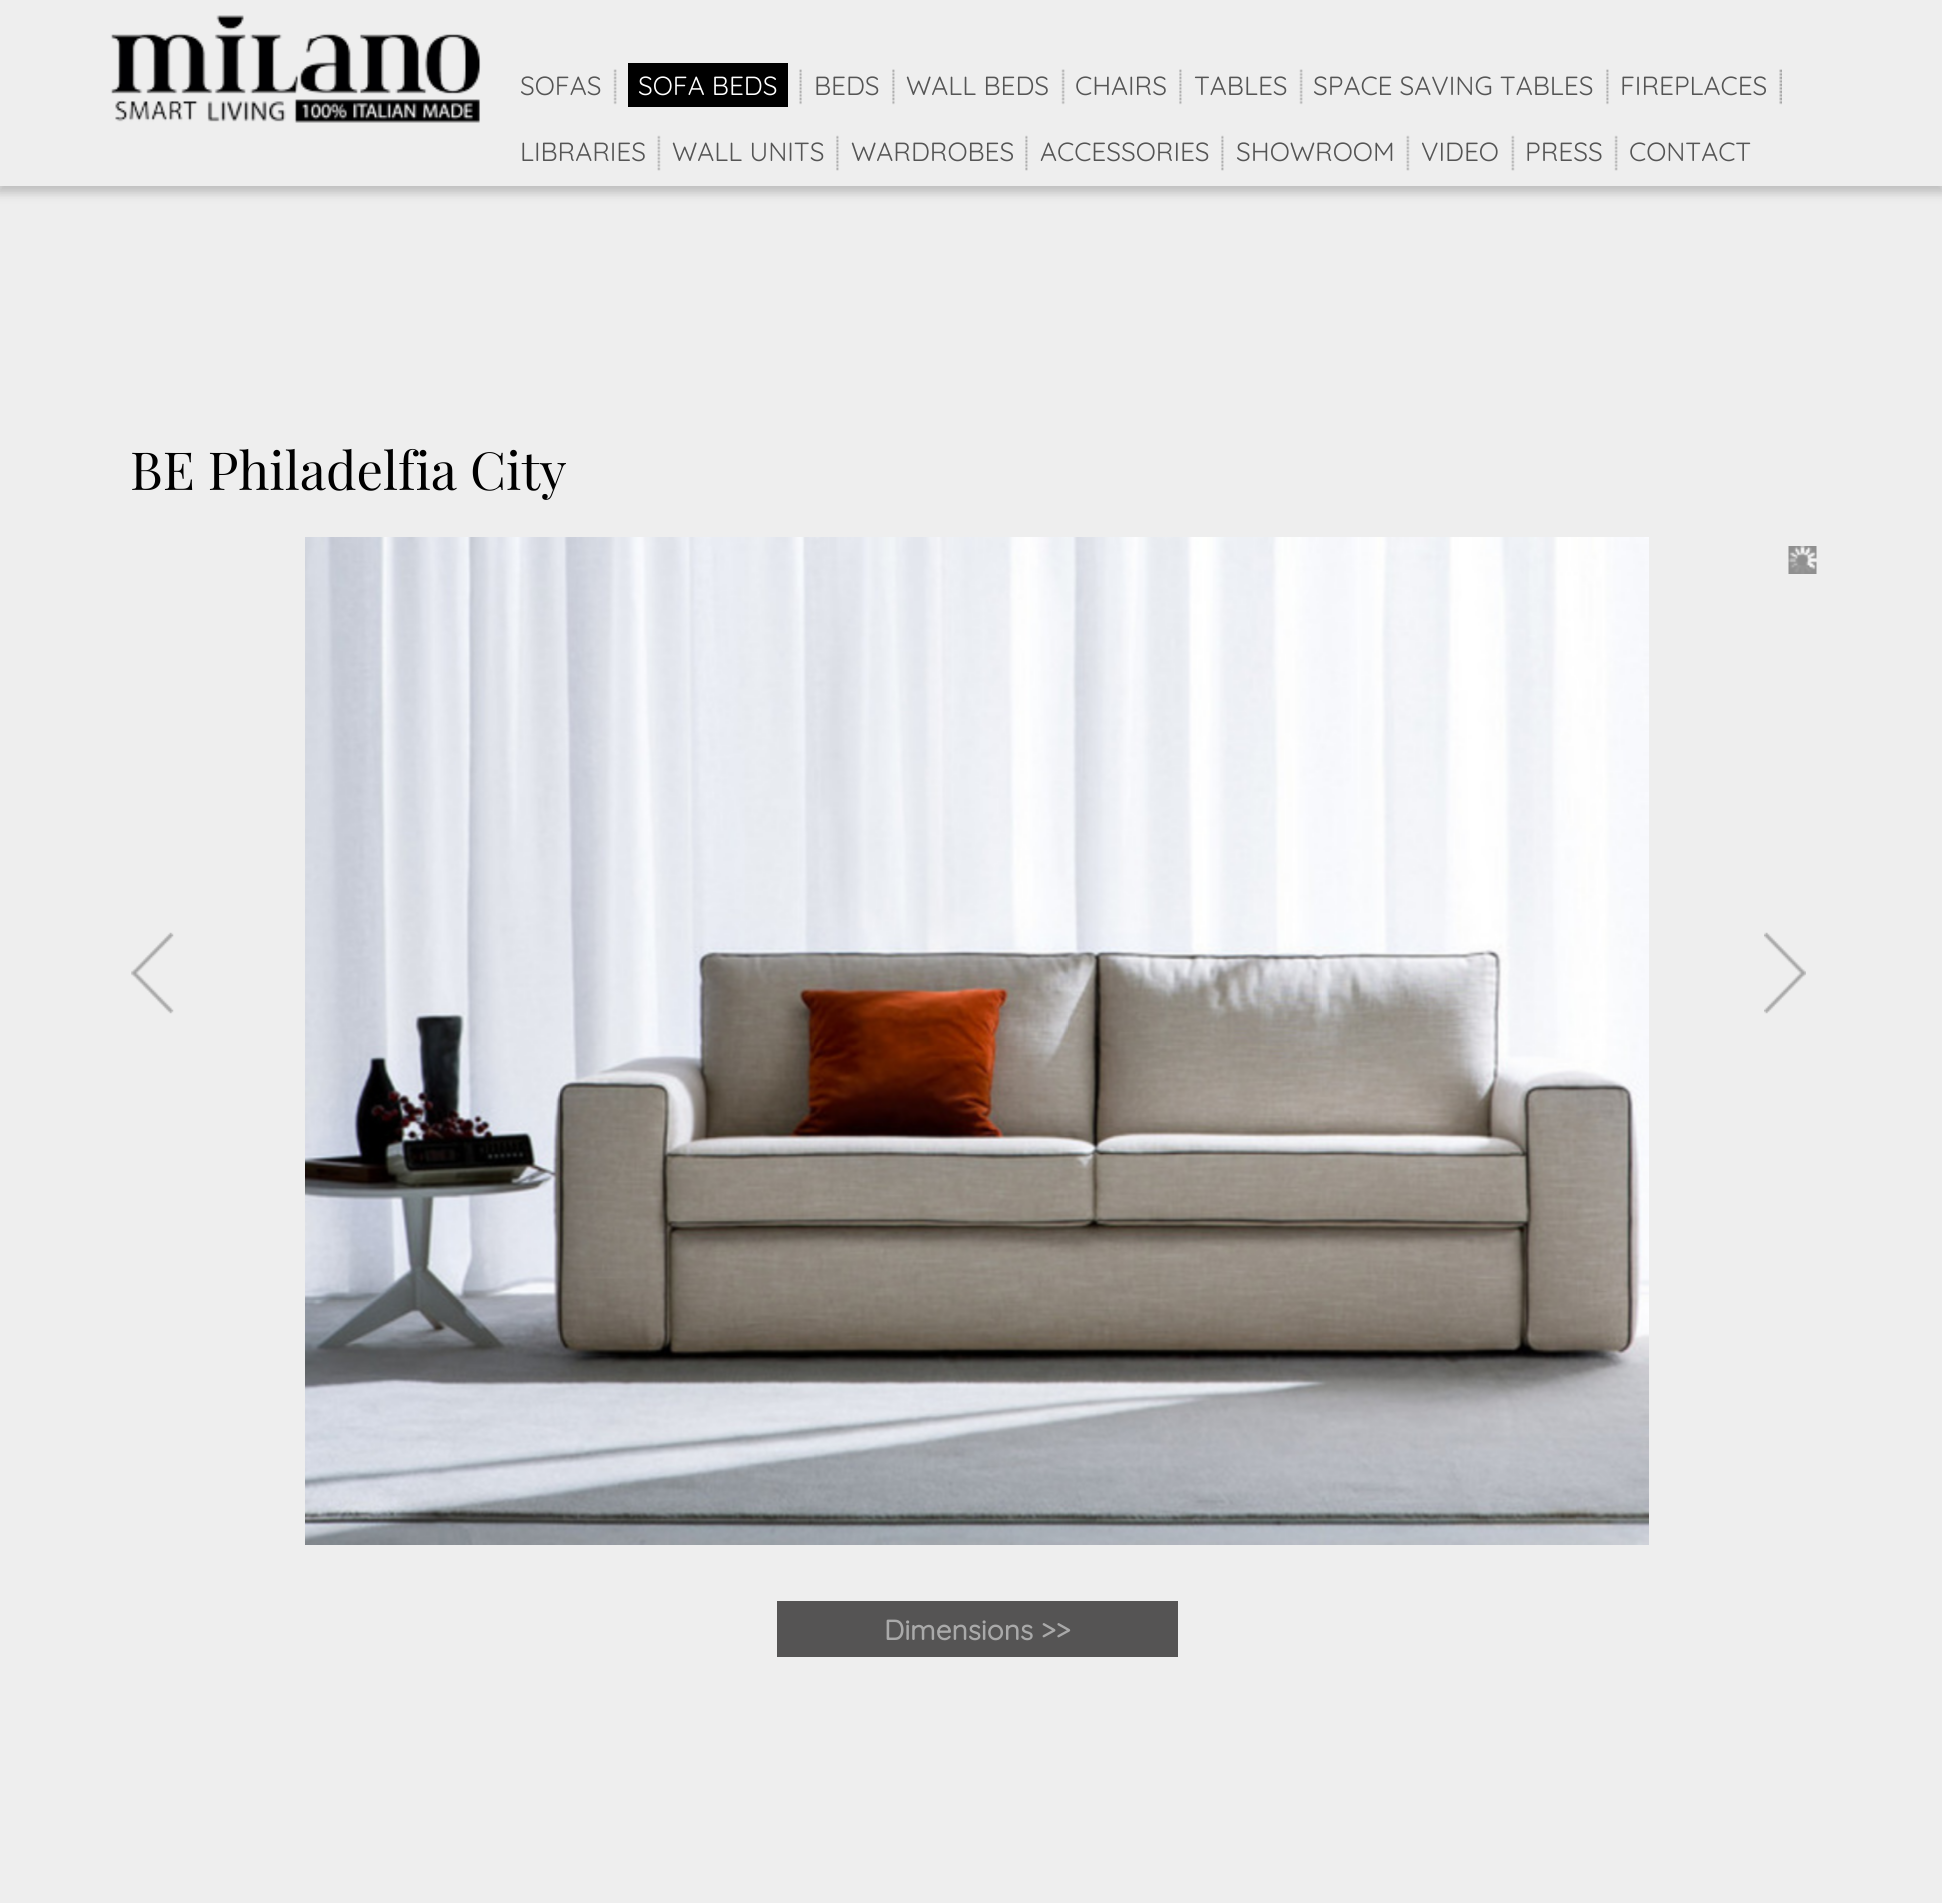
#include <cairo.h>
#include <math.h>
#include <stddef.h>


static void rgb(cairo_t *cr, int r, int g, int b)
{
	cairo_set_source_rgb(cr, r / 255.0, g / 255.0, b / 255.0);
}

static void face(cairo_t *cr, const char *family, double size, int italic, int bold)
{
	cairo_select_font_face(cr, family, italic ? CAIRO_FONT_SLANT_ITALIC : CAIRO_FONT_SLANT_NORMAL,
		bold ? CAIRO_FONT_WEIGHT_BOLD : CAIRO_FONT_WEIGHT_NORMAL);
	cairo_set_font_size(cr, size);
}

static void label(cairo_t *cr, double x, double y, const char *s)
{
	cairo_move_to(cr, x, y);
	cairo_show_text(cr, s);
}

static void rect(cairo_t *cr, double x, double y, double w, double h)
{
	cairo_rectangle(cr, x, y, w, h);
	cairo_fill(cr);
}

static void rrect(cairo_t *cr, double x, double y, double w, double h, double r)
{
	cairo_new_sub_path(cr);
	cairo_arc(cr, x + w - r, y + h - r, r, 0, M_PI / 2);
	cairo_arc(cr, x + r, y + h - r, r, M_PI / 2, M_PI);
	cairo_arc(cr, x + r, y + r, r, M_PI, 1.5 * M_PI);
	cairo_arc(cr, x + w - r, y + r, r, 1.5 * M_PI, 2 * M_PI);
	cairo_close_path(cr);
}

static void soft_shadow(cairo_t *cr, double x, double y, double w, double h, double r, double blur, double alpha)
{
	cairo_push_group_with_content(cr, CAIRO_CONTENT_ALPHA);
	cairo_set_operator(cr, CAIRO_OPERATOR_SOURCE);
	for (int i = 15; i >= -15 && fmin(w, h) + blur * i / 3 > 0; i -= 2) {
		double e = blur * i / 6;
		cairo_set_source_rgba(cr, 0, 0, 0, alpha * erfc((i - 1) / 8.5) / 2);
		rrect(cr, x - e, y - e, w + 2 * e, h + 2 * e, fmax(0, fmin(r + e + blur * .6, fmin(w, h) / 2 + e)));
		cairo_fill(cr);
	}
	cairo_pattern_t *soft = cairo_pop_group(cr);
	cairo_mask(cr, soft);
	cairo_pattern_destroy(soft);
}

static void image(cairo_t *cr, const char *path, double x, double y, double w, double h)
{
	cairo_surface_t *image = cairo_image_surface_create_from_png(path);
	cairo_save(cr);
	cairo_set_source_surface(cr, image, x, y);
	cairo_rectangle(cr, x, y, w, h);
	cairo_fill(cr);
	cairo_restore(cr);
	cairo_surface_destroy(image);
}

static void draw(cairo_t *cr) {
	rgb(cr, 238, 238, 238);
	cairo_paint(cr);
	rgb(cr, 0, 0, 0);
	soft_shadow(cr, -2, 4, 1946, 189, 0, 5, 0.2);
	rgb(cr, 238, 238, 238);
	rect(cr, 0, 0, 1942, 186);
	image(cr, "image0.png", 110, 15, 371, 108);
	face(cr, "Quicksand Light", 26.25, 0, 0);
	rgb(cr, 85, 85, 85);
	label(cr, 520, 95, "SOFAS");
	image(cr, "image1.png", 613, 69, 4, 36);
	rgb(cr, 0, 0, 0);
	rect(cr, 628, 63, 160, 44);
	rgb(cr, 255, 255, 255);
	label(cr, 638, 95, "SOFA BEDS");
	image(cr, "image2.png", 799, 69, 3, 36);
	rgb(cr, 85, 85, 85);
	label(cr, 814, 95, "BEDS");
	image(cr, "image3.png", 892, 69, 3, 36);
	label(cr, 906, 95, "WALL BEDS");
	image(cr, "image1.png", 1061, 69, 4, 36);
	label(cr, 1075, 95, "CHAIRS");
	image(cr, "image3.png", 1179, 69, 3, 36);
	label(cr, 1194, 95, "TABLES");
	image(cr, "image1.png", 1299, 69, 4, 36);
	label(cr, 1313, 95, "SPACE SAVING TABLES");
	image(cr, "image3.png", 1606, 69, 3, 36);
	label(cr, 1620, 95, "FIREPLACES");
	image(cr, "image4.png", 1779, 69, 3, 36);
	label(cr, 520, 161, "LIBRARIES");
	image(cr, "image5.png", 657, 135, 4, 36);
	label(cr, 672, 161, "WALL UNITS");
	image(cr, "image6.png", 836, 135, 3, 36);
	label(cr, 851, 161, "WARDROBES");
	image(cr, "image6.png", 1025, 135, 3, 36);
	label(cr, 1040, 161, "ACCESSORIES");
	image(cr, "image6.png", 1221, 135, 3, 36);
	label(cr, 1236, 161, "SHOWROOM");
	image(cr, "image5.png", 1406, 135, 4, 36);
	label(cr, 1421, 161, "VIDEO");
	image(cr, "image5.png", 1511, 135, 4, 36);
	label(cr, 1525, 161, "PRESS");
	image(cr, "image7.png", 1614, 135, 4, 36);
	label(cr, 1629, 161, "CONTACT");
	face(cr, "Playfair Display", 52.5, 0, 0);
	rgb(cr, 0, 0, 0);
	label(cr, 130, 490, "BE Philadelfia City");
	image(cr, "image8.png", 305, 537, 1344, 1008);
	image(cr, "image9.png", 1788, 546, 29, 28);
	image(cr, "image10.png", 131, 932, 43, 82);
	image(cr, "image11.png", 1764, 932, 42, 82);
	rgb(cr, 85, 84, 84);
	rect(cr, 777, 1601, 401, 56);
	face(cr, "Quicksand", 28, 0, 1);
	rgb(cr, 169, 169, 169);
	label(cr, 884, 1640, "Dimensions >>");
}

int main(void) {
	cairo_surface_t *surface = cairo_image_surface_create(CAIRO_FORMAT_RGB24, 1942, 1903);
	cairo_t *cr = cairo_create(surface);
	cairo_font_options_t *options = cairo_font_options_create();
	cairo_font_options_set_hint_metrics(options, CAIRO_HINT_METRICS_OFF);
	cairo_font_options_set_hint_style(options, CAIRO_HINT_STYLE_NONE);
	cairo_set_font_options(cr, options);
	cairo_set_miter_limit(cr, 4);
	draw(cr);
	cairo_surface_write_to_png(surface, "render.png");
	cairo_font_options_destroy(options);
	cairo_destroy(cr);
	cairo_surface_destroy(surface);
	return 0;
}
